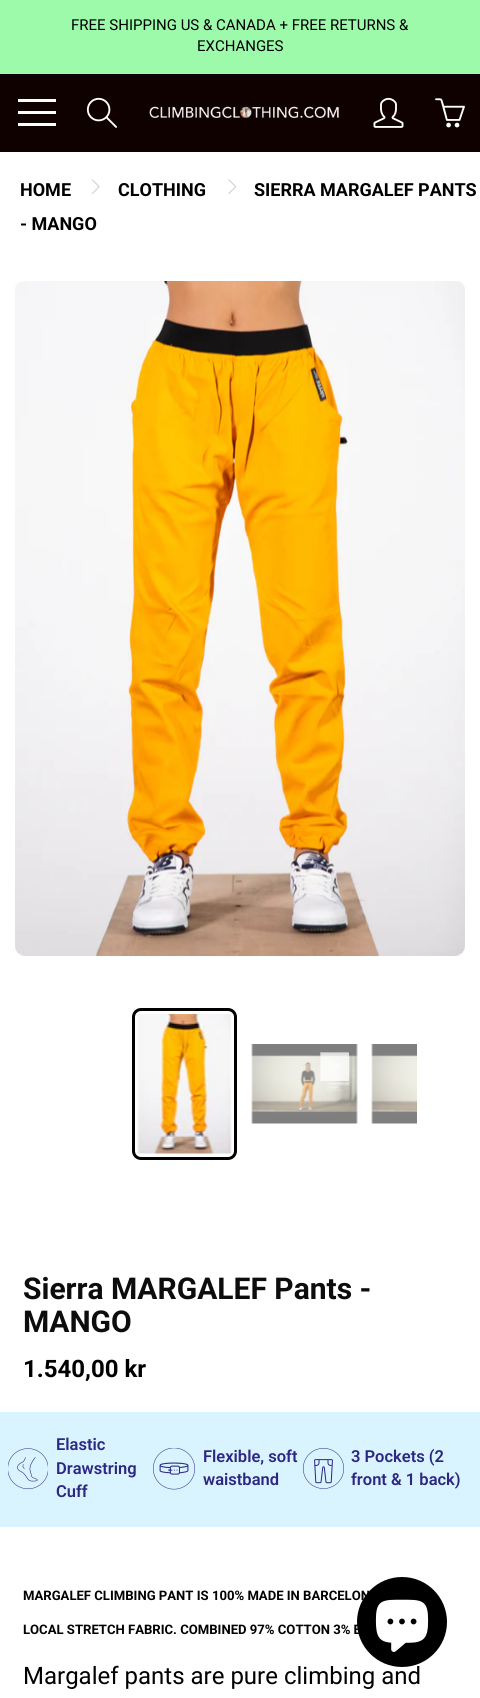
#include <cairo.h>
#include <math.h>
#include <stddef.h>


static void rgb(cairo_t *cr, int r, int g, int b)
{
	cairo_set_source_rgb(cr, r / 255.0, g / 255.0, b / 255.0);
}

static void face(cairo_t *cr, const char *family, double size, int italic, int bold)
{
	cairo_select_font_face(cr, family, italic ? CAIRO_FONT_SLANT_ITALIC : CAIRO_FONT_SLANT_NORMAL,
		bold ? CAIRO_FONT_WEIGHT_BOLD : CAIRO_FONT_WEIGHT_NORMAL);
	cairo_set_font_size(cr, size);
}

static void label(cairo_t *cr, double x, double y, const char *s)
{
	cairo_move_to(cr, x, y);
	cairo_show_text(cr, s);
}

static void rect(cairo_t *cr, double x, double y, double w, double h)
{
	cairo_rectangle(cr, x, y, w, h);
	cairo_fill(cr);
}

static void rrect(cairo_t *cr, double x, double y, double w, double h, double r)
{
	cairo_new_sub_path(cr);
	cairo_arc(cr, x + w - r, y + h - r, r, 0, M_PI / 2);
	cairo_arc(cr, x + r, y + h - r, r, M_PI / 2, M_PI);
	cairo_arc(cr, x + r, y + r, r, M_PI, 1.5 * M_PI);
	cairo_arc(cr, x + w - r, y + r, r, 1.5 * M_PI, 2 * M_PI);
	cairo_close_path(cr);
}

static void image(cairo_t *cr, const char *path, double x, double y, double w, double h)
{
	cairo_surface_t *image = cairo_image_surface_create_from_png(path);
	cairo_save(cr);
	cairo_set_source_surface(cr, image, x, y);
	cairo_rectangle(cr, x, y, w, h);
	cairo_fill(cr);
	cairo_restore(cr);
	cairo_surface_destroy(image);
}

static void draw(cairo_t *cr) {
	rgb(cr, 255, 255, 255);
	cairo_paint(cr);
	rgb(cr, 158, 250, 171);
	rect(cr, 0, 0, 480, 74);
	face(cr, "Roboto", 15, 0, 0);
	rgb(cr, 0, 0, 0);
	label(cr, 71, 30, "FREE SHIPPING US & CANADA + FREE RETURNS &");
	label(cr, 197, 51, "EXCHANGES");
	rgb(cr, 16, 1, 1);
	rect(cr, 0, 74, 480, 78);
	rgb(cr, 255, 255, 255);
	rect(cr, 18, 111, 38, 3);
	rect(cr, 18, 99, 38, 3);
	rect(cr, 18, 123, 38, 3);
	image(cr, "image0.png", 86, 97, 31, 31);
	image(cr, "image1.png", 149, 106, 191, 12);
	image(cr, "image2.png", 373, 97, 31, 31);
	image(cr, "image3.png", 435, 98, 30, 30);
	face(cr, "Roboto", 18, 0, 1);
	rgb(cr, 0, 0, 0);
	label(cr, 20, 196, "HOME");
	image(cr, "image4.png", 91, 179, 9, 15);
	label(cr, 118, 196, "CLOTHING");
	image(cr, "image5.png", 228, 179, 9, 15);
	label(cr, 254, 196, "SIERRA MARGALEF PANTS");
	label(cr, 20, 230, "- MANGO");
	image(cr, "image6.png", 15, 281, 450, 675);
	rrect(cr, 133.5, 1009.5, 102, 149, 7.5);
	cairo_set_line_width(cr, 3);
	cairo_stroke(cr);
	image(cr, "image7.png", 137, 1014, 95, 140);
	image(cr, "image8.png", 251, 1044, 107, 80);
	image(cr, "image9.png", 320, 1052, 29, 29);
	image(cr, "image10.png", 371, 1044, 46, 80);
	face(cr, "Roboto", 30, 0, 1);
	rgb(cr, 13, 13, 13);
	label(cr, 23, 1299, "Sierra MARGALEF Pants -");
	label(cr, 23, 1332, "MANGO");
	face(cr, "Roboto", 24, 0, 1);
	rgb(cr, 0, 0, 0);
	label(cr, 23, 1377, "1.540,00 kr");
	rgb(cr, 218, 244, 255);
	rect(cr, 0, 1412, 480, 115);
	image(cr, "image11.png", 8, 1448, 40, 42);
	face(cr, "Roboto SemiBold", 16.5, 0, 0);
	rgb(cr, 45, 39, 129);
	label(cr, 56, 1450, "Elastic");
	label(cr, 56, 1474, "Drawstring");
	label(cr, 56, 1497, "Cuff");
	image(cr, "image12.png", 153, 1448, 42, 42);
	label(cr, 203, 1462, "Flexible, soft");
	label(cr, 203, 1485, "waistband");
	image(cr, "image13.png", 303, 1448, 41, 41);
	label(cr, 351, 1462, "3 Pockets (2");
	label(cr, 351, 1485, "front & 1 back)");
	face(cr, "Roboto", 13.1, 0, 1);
	rgb(cr, 0, 0, 0);
	label(cr, 23, 1600, "MARGALEF CLIMBING PANT IS 100% MADE IN BARCELON");
	label(cr, 23, 1634, "LOCAL STRETCH FABRIC. COMBINED 97% COTTON 3% E");
	face(cr, "Roboto", 24, 0, 0);
	label(cr, 23, 1684, "Margalef pants are pure climbing and");
	cairo_new_path(cr);
	cairo_arc(cr, 402, 1622, 45, 0, 2 * M_PI);
	cairo_fill(cr);
	image(cr, "image14.png", 375, 1599, 54, 53);
}

int main(void) {
	cairo_surface_t *surface = cairo_image_surface_create(CAIRO_FORMAT_RGB24, 480, 1698);
	cairo_t *cr = cairo_create(surface);
	cairo_font_options_t *options = cairo_font_options_create();
	cairo_font_options_set_hint_metrics(options, CAIRO_HINT_METRICS_OFF);
	cairo_font_options_set_hint_style(options, CAIRO_HINT_STYLE_NONE);
	cairo_set_font_options(cr, options);
	cairo_set_miter_limit(cr, 4);
	draw(cr);
	cairo_surface_write_to_png(surface, "render.png");
	cairo_font_options_destroy(options);
	cairo_destroy(cr);
	cairo_surface_destroy(surface);
	return 0;
}
